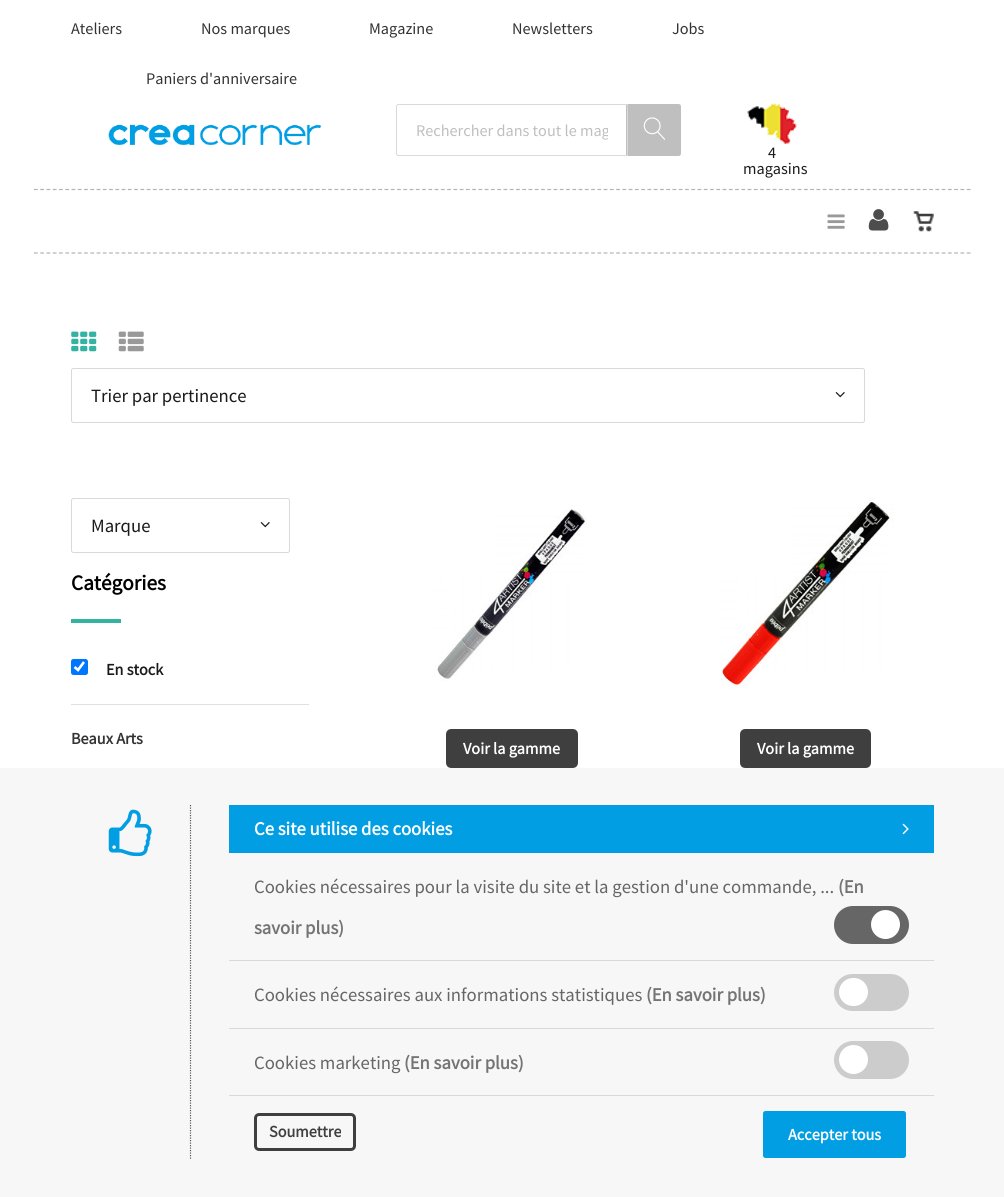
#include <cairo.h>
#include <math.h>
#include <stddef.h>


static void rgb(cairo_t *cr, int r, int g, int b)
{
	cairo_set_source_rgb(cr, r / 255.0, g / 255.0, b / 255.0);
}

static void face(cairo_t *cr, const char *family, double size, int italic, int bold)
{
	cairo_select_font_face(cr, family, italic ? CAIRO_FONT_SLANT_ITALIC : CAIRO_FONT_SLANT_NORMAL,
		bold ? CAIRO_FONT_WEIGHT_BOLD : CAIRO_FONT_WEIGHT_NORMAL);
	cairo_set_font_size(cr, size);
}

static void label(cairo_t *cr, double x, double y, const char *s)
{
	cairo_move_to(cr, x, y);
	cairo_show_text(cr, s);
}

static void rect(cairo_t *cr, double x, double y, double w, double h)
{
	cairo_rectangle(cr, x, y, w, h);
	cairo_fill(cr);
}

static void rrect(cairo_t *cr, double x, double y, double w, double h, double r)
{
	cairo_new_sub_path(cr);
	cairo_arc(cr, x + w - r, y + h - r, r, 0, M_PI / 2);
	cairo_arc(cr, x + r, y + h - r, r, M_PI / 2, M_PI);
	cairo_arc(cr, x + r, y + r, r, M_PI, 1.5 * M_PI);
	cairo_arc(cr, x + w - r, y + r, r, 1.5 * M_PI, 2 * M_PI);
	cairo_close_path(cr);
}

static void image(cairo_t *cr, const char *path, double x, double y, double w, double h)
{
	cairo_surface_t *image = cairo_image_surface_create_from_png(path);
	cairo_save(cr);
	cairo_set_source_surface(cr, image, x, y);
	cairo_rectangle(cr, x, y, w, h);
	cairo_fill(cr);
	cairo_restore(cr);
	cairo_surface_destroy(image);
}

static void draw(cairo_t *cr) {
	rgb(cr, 255, 255, 255);
	cairo_paint(cr);
	face(cr, "Source Sans Pro", 16.25, 0, 0);
	rgb(cr, 51, 51, 51);
	label(cr, 71, 34, "Ateliers");
	label(cr, 201, 34, "Nos marques");
	label(cr, 369, 34, "Magazine");
	label(cr, 512, 34, "Newsletters");
	label(cr, 672, 34, "Jobs");
	label(cr, 146, 84, "Paniers d'anniversaire");
	image(cr, "image0.png", 108, 124, 214, 21);
	rgb(cr, 191, 191, 191);
	cairo_new_path(cr);
	cairo_move_to(cr, 626, 104);
	cairo_line_to(cr, 678.5, 104);
	cairo_curve_to(cr, 680, 104, 681, 105, 681, 106.5);
	cairo_line_to(cr, 681, 153.5);
	cairo_curve_to(cr, 681, 155, 680, 156, 678.5, 156);
	cairo_line_to(cr, 626, 156);
	cairo_close_path(cr);
	cairo_fill(cr);
	cairo_new_path(cr);
	cairo_move_to(cr, 398.5, 104.5);
	cairo_line_to(cr, 627.5, 104.5);
	cairo_line_to(cr, 627.5, 155.5);
	cairo_line_to(cr, 398.5, 155.5);
	cairo_curve_to(cr, 397.5, 155.5, 396.5, 154.5, 396.5, 153.5);
	cairo_line_to(cr, 396.5, 106.5);
	cairo_curve_to(cr, 396.5, 105.5, 397.5, 104.5, 398.5, 104.5);
	cairo_close_path(cr);
	rgb(cr, 217, 217, 217);
	cairo_set_line_width(cr, 1);
	cairo_stroke(cr);
	cairo_save(cr);
	cairo_rectangle(cr, 416, 120, 192, 21);
	cairo_clip(cr);
	rgb(cr, 191, 191, 191);
	label(cr, 416, 136, "Rechercher dans tout le mag");
	cairo_restore(cr);
	image(cr, "image1.png", 643, 117, 22, 23);
	image(cr, "image2.png", 747, 103, 50, 41);
	rgb(cr, 26, 26, 26);
	label(cr, 768, 158, "4");
	label(cr, 743, 174, "magasins");
	cairo_new_path(cr);
	cairo_move_to(cr, 34, 189.5);
	cairo_line_to(cr, 971, 189.5);
	rgb(cr, 179, 179, 179);
	cairo_set_line_width(cr, 1.2);
	cairo_set_dash(cr, (double[]){3.75, 2.51}, 2, 0);
	cairo_stroke(cr);
	cairo_new_path(cr);
	cairo_move_to(cr, 34, 253);
	cairo_line_to(cr, 971, 253);
	cairo_stroke(cr);
	image(cr, "image3.png", 827, 214, 18, 15);
	image(cr, "image4.png", 868, 209, 21, 22);
	image(cr, "image5.png", 913, 211, 21, 21);
	image(cr, "image6.png", 71, 331, 26, 21);
	image(cr, "image7.png", 118, 331, 26, 21);
	rrect(cr, 71.5, 368.5, 793, 54, 2);
	rgb(cr, 217, 217, 217);
	cairo_set_line_width(cr, 1);
	cairo_set_dash(cr, NULL, 0, 0);
	cairo_stroke(cr);
	face(cr, "Source Sans Pro", 18.75, 0, 0);
	rgb(cr, 26, 26, 26);
	label(cr, 91, 402, "Trier par pertinence");
	image(cr, "image8.png", 835, 392, 10, 6);
	rrect(cr, 71.5, 498.5, 218, 54, 2);
	rgb(cr, 217, 217, 217);
	cairo_stroke(cr);
	rgb(cr, 26, 26, 26);
	label(cr, 91, 532, "Marque");
	image(cr, "image8.png", 260, 522, 10, 6);
	face(cr, "Source Sans Pro", 21.25, 0, 1);
	rgb(cr, 0, 0, 0);
	label(cr, 71, 590, "Catégories");
	rgb(cr, 52, 179, 162);
	rect(cr, 71, 619, 50, 4);
	rgb(cr, 0, 117, 255);
	rrect(cr, 71, 659, 17, 16, 2.5);
	cairo_fill(cr);
	cairo_new_path(cr);
	cairo_move_to(cr, 74.5, 667);
	cairo_line_to(cr, 78, 670);
	cairo_line_to(cr, 84, 662);
	rgb(cr, 255, 255, 255);
	cairo_set_line_width(cr, 2.6);
	cairo_stroke(cr);
	face(cr, "Source Sans Pro", 16.25, 0, 1);
	rgb(cr, 26, 26, 26);
	label(cr, 106, 675, "En stock");
	rgb(cr, 224, 224, 224);
	rect(cr, 71, 704, 238, 1);
	rgb(cr, 51, 51, 51);
	label(cr, 71, 744, "Beaux Arts");
	image(cr, "image9.png", 434, 509, 153, 172);
	rgb(cr, 63, 63, 63);
	rrect(cr, 447.5, 730.5, 129, 36, 3.5);
	cairo_fill_preserve(cr);
	cairo_set_line_width(cr, 3);
	cairo_stroke(cr);
	rgb(cr, 255, 255, 255);
	label(cr, 463, 754, "Voir la gamme");
	image(cr, "image10.png", 721, 498, 173, 191);
	rgb(cr, 63, 63, 63);
	rrect(cr, 741.5, 730.5, 128, 36, 3.5);
	cairo_fill_preserve(cr);
	cairo_stroke(cr);
	rgb(cr, 255, 255, 255);
	label(cr, 757, 754, "Voir la gamme");
	rgb(cr, 247, 247, 247);
	rect(cr, 0, 768, 1004, 429);
	image(cr, "image11.png", 108, 809, 44, 48);
	cairo_new_path(cr);
	cairo_move_to(cr, 190.5, 805);
	cairo_line_to(cr, 190.5, 1160);
	rgb(cr, 89, 89, 89);
	cairo_set_line_width(cr, 1.2);
	cairo_set_dash(cr, (double[]){1.25, 1.25}, 2, 0);
	cairo_stroke(cr);
	rgb(cr, 1, 158, 227);
	rect(cr, 229, 805, 705, 48);
	face(cr, "Source Sans Pro", 18.75, 0, 1);
	rgb(cr, 255, 255, 255);
	label(cr, 254, 835, "Ce site utilise des cookies");
	image(cr, "image12.png", 902, 823, 7, 12);
	rgb(cr, 217, 217, 217);
	rect(cr, 229, 960, 705, 1);
	face(cr, "Source Sans Pro", 18.75, 0, 0);
	rgb(cr, 102, 102, 102);
	label(cr, 254, 893, "Cookies nécessaires pour la visite du site et la gestion d'une commande, ...");
	face(cr, "Source Sans Pro", 18.75, 0, 1);
	rgb(cr, 116, 116, 116);
	label(cr, 838, 893, "(En");
	label(cr, 254, 934, "savoir plus)");
	rgb(cr, 102, 102, 102);
	rrect(cr, 834, 906, 75, 38, 19);
	cairo_fill(cr);
	rgb(cr, 255, 255, 255);
	cairo_arc(cr, 885.5, 924.5, 14.5, 0, 2 * M_PI);
	cairo_fill(cr);
	rgb(cr, 217, 217, 217);
	rect(cr, 229, 1028, 705, 1);
	face(cr, "Source Sans Pro", 18.75, 0, 0);
	rgb(cr, 102, 102, 102);
	label(cr, 254, 1001, "Cookies nécessaires aux informations statistiques");
	face(cr, "Source Sans Pro", 18.75, 0, 1);
	rgb(cr, 116, 116, 116);
	label(cr, 646, 1001, "(En savoir plus)");
	rgb(cr, 204, 204, 204);
	rrect(cr, 834, 974, 75, 37, 18.5);
	cairo_fill(cr);
	rgb(cr, 255, 255, 255);
	rrect(cr, 839, 978, 29, 28, 14);
	cairo_fill(cr);
	rgb(cr, 217, 217, 217);
	rect(cr, 229, 1095, 705, 1);
	face(cr, "Source Sans Pro", 18.75, 0, 0);
	rgb(cr, 102, 102, 102);
	label(cr, 254, 1069, "Cookies marketing");
	face(cr, "Source Sans Pro", 18.75, 0, 1);
	rgb(cr, 116, 116, 116);
	label(cr, 404, 1069, "(En savoir plus)");
	rgb(cr, 204, 204, 204);
	rrect(cr, 834, 1041, 75, 38, 19);
	cairo_fill(cr);
	rgb(cr, 255, 255, 255);
	cairo_arc(cr, 853.5, 1059.5, 14.5, 0, 2 * M_PI);
	cairo_fill(cr);
	rrect(cr, 255.5, 1114.5, 99, 35, 3.5);
	rgb(cr, 63, 63, 63);
	cairo_set_line_width(cr, 3);
	cairo_set_dash(cr, NULL, 0, 0);
	cairo_stroke(cr);
	face(cr, "Source Sans Pro", 16.25, 0, 1);
	label(cr, 269, 1137, "Soumettre");
	rgb(cr, 1, 158, 227);
	rrect(cr, 763, 1111, 143, 47, 2.5);
	cairo_fill(cr);
	rgb(cr, 255, 255, 255);
	label(cr, 788, 1140, "Accepter tous");
}

int main(void) {
	cairo_surface_t *surface = cairo_image_surface_create(CAIRO_FORMAT_RGB24, 1004, 1197);
	cairo_t *cr = cairo_create(surface);
	cairo_font_options_t *options = cairo_font_options_create();
	cairo_font_options_set_hint_metrics(options, CAIRO_HINT_METRICS_OFF);
	cairo_font_options_set_hint_style(options, CAIRO_HINT_STYLE_NONE);
	cairo_set_font_options(cr, options);
	cairo_set_miter_limit(cr, 4);
	draw(cr);
	cairo_surface_write_to_png(surface, "render.png");
	cairo_font_options_destroy(options);
	cairo_destroy(cr);
	cairo_surface_destroy(surface);
	return 0;
}
